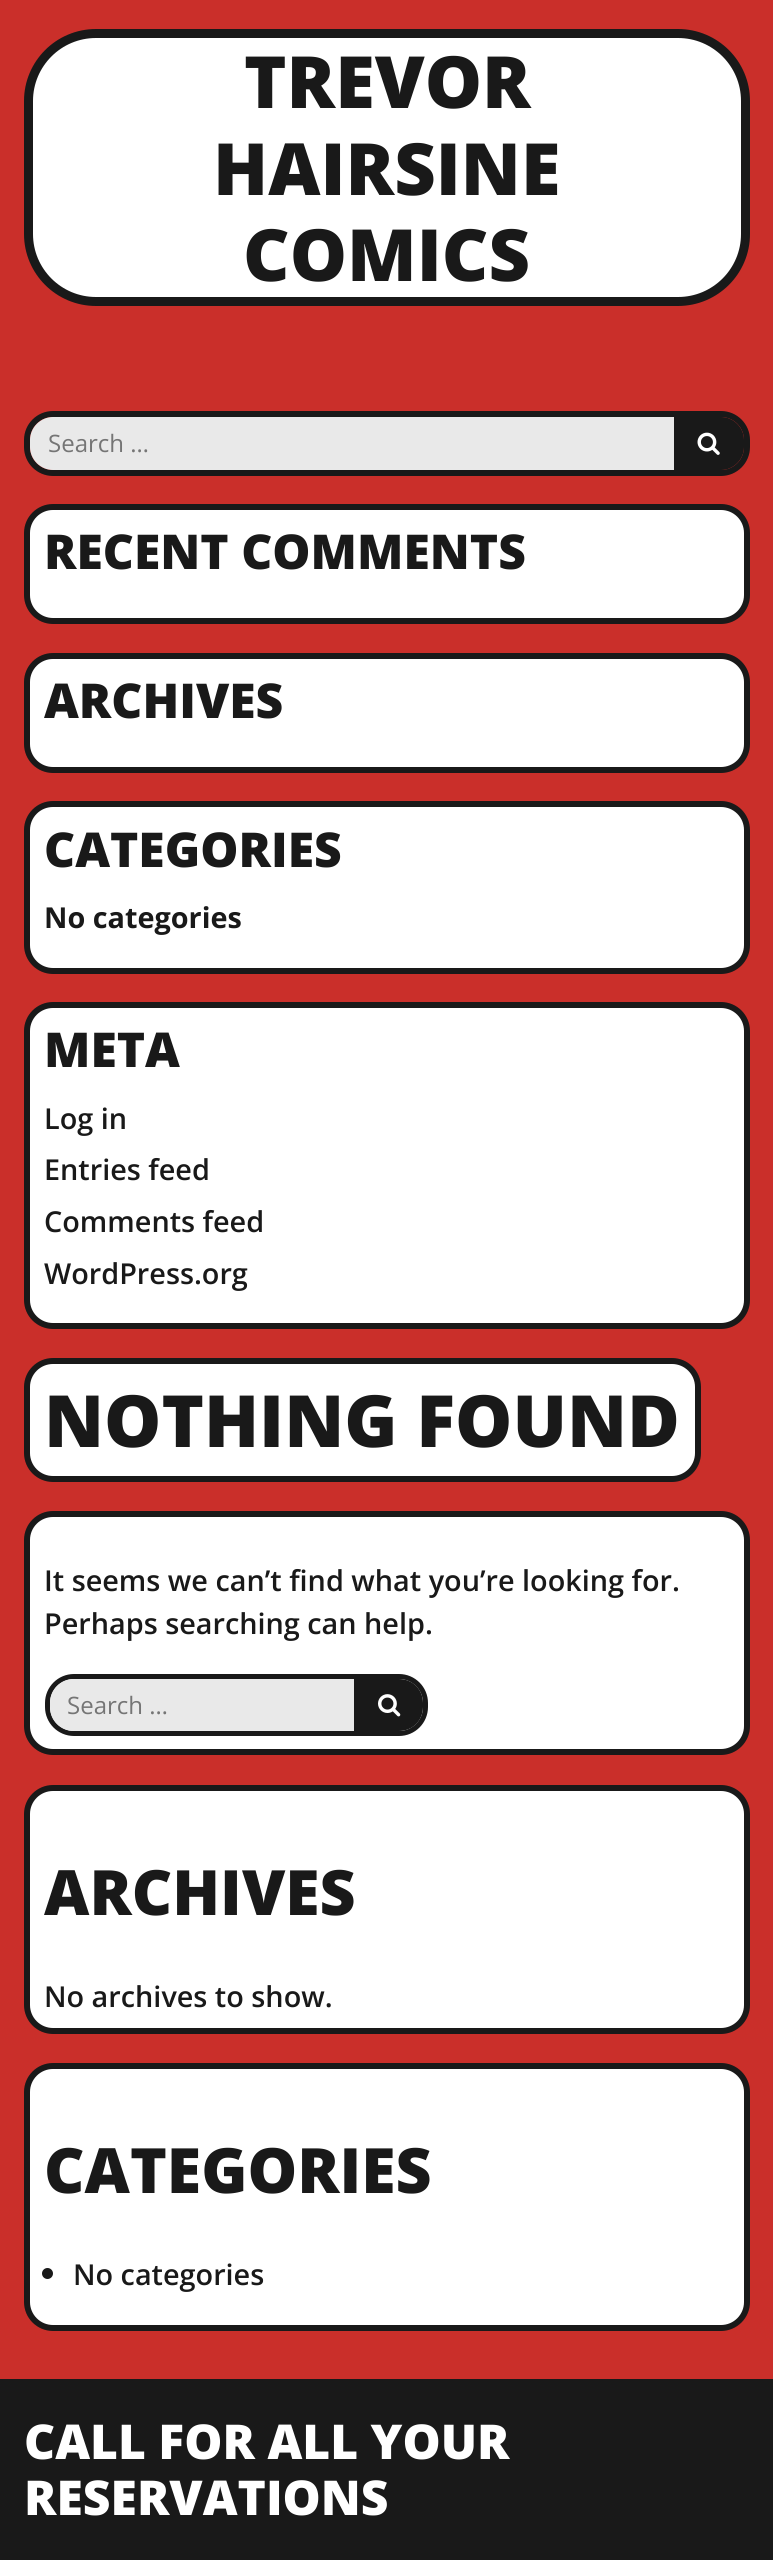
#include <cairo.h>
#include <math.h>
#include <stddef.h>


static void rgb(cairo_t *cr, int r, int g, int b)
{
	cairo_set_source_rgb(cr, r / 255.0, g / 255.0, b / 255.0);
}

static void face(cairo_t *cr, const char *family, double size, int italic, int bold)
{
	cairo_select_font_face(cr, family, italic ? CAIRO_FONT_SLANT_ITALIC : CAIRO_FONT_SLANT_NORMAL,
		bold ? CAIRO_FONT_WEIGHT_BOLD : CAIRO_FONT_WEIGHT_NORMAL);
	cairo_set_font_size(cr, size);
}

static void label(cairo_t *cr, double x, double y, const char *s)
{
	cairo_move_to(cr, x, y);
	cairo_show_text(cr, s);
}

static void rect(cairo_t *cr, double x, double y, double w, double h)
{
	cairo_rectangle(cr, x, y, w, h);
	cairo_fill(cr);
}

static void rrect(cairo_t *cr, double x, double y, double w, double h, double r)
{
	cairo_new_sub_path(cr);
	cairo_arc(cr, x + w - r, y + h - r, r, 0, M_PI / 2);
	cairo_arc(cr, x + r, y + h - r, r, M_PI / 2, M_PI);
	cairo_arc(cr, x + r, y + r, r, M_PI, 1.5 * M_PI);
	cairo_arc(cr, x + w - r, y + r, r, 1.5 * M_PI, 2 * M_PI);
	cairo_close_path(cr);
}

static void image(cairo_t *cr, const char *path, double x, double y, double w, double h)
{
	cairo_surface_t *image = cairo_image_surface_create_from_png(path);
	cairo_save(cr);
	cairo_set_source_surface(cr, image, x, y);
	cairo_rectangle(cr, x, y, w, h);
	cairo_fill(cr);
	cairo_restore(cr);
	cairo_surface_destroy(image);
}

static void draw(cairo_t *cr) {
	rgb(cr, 202, 47, 42);
	cairo_paint(cr);
	rgb(cr, 255, 255, 255);
	rrect(cr, 28.5, 33.5, 717, 268, 67.5);
	cairo_fill_preserve(cr);
	rgb(cr, 25, 25, 25);
	cairo_set_line_width(cr, 9);
	cairo_stroke(cr);
	face(cr, "Open Sans ExtraBold", 72, 0, 0);
	label(cr, 244, 108, "TREVOR");
	label(cr, 213, 195, "HAIRSINE");
	label(cr, 243, 281, "COMICS");
	rrect(cr, 27, 414, 720, 59, 26);
	cairo_set_line_width(cr, 6);
	cairo_stroke(cr);
	rgb(cr, 233, 233, 233);
	cairo_new_path(cr);
	cairo_move_to(cr, 53, 417);
	cairo_line_to(cr, 674, 417);
	cairo_line_to(cr, 674, 470);
	cairo_line_to(cr, 53, 470);
	cairo_curve_to(cr, 40.5, 470, 30, 459.5, 30, 447);
	cairo_line_to(cr, 30, 440);
	cairo_curve_to(cr, 30, 427.5, 40.5, 417, 53, 417);
	cairo_close_path(cr);
	cairo_fill(cr);
	face(cr, "Open Sans", 24, 0, 0);
	rgb(cr, 117, 117, 117);
	label(cr, 48, 452, "Search …");
	rgb(cr, 25, 25, 25);
	cairo_new_path(cr);
	cairo_move_to(cr, 674, 417);
	cairo_line_to(cr, 721, 417);
	cairo_curve_to(cr, 733.5, 417, 744, 427.5, 744, 440);
	cairo_line_to(cr, 744, 447);
	cairo_curve_to(cr, 744, 459.5, 733.5, 470, 721, 470);
	cairo_line_to(cr, 674, 470);
	cairo_close_path(cr);
	cairo_fill(cr);
	image(cr, "image0.png", 697, 432, 23, 23);
	rgb(cr, 255, 255, 255);
	rrect(cr, 27, 507, 720, 114, 26);
	cairo_fill_preserve(cr);
	rgb(cr, 25, 25, 25);
	cairo_stroke(cr);
	face(cr, "Open Sans ExtraBold", 48, 0, 0);
	label(cr, 44, 569, "RECENT COMMENTS");
	rgb(cr, 255, 255, 255);
	rrect(cr, 27, 656, 720, 114, 26);
	cairo_fill_preserve(cr);
	rgb(cr, 25, 25, 25);
	cairo_stroke(cr);
	label(cr, 44, 718, "ARCHIVES");
	rgb(cr, 255, 255, 255);
	rrect(cr, 27, 804, 720, 167, 26);
	cairo_fill_preserve(cr);
	rgb(cr, 25, 25, 25);
	cairo_stroke(cr);
	label(cr, 44, 867, "CATEGORIES");
	face(cr, "Open Sans", 28.8, 0, 1);
	label(cr, 44, 928, "No categories");
	rgb(cr, 255, 255, 255);
	rrect(cr, 27, 1005, 720, 321, 26);
	cairo_fill_preserve(cr);
	rgb(cr, 25, 25, 25);
	cairo_stroke(cr);
	face(cr, "Open Sans ExtraBold", 48, 0, 0);
	label(cr, 44, 1067, "META");
	face(cr, "Open Sans SemiBold", 28.8, 0, 0);
	label(cr, 44, 1129, "Log in");
	label(cr, 44, 1180, "Entries feed");
	label(cr, 44, 1232, "Comments feed");
	label(cr, 44, 1284, "WordPress.org");
	rgb(cr, 255, 255, 255);
	rrect(cr, 27, 1361, 671, 118, 26);
	cairo_fill_preserve(cr);
	rgb(cr, 25, 25, 25);
	cairo_stroke(cr);
	face(cr, "Open Sans ExtraBold", 72, 0, 0);
	label(cr, 44, 1447, "NOTHING FOUND");
	rgb(cr, 255, 255, 255);
	rrect(cr, 27, 1514, 720, 238, 26);
	cairo_fill_preserve(cr);
	rgb(cr, 25, 25, 25);
	cairo_stroke(cr);
	face(cr, "Open Sans SemiBold", 28.8, 0, 0);
	label(cr, 44, 1591, "It seems we can’t find what you’re looking for.");
	label(cr, 44, 1634, "Perhaps searching can help.");
	rrect(cr, 47.5, 1676.5, 378, 57, 26.5);
	cairo_set_line_width(cr, 5);
	cairo_stroke(cr);
	rgb(cr, 233, 233, 233);
	cairo_new_path(cr);
	cairo_move_to(cr, 74, 1679);
	cairo_line_to(cr, 354, 1679);
	cairo_line_to(cr, 354, 1731);
	cairo_line_to(cr, 74, 1731);
	cairo_curve_to(cr, 60.5, 1731, 50, 1720.5, 50, 1707);
	cairo_line_to(cr, 50, 1703);
	cairo_curve_to(cr, 50, 1689.5, 60.5, 1679, 74, 1679);
	cairo_close_path(cr);
	cairo_fill(cr);
	face(cr, "Open Sans", 24, 0, 0);
	rgb(cr, 117, 117, 117);
	label(cr, 67, 1714, "Search …");
	rgb(cr, 25, 25, 25);
	cairo_new_path(cr);
	cairo_move_to(cr, 354, 1679);
	cairo_line_to(cr, 399, 1679);
	cairo_curve_to(cr, 412.5, 1679, 423, 1689.5, 423, 1703);
	cairo_line_to(cr, 423, 1707);
	cairo_curve_to(cr, 423, 1720.5, 412.5, 1731, 399, 1731);
	cairo_line_to(cr, 354, 1731);
	cairo_close_path(cr);
	cairo_fill(cr);
	image(cr, "image1.png", 378, 1694, 23, 23);
	rgb(cr, 255, 255, 255);
	rrect(cr, 27, 1788, 720, 243, 26);
	cairo_fill_preserve(cr);
	rgb(cr, 25, 25, 25);
	cairo_set_line_width(cr, 6);
	cairo_stroke(cr);
	face(cr, "Open Sans ExtraBold", 62.5, 0, 0);
	label(cr, 44, 1915, "ARCHIVES");
	face(cr, "Open Sans SemiBold", 28.8, 0, 0);
	label(cr, 44, 2007, "No archives to show.");
	rgb(cr, 255, 255, 255);
	rrect(cr, 27, 2066, 720, 262, 26);
	cairo_fill_preserve(cr);
	rgb(cr, 25, 25, 25);
	cairo_stroke(cr);
	face(cr, "Open Sans ExtraBold", 62.5, 0, 0);
	label(cr, 44, 2193, "CATEGORIES");
	cairo_new_path(cr);
	cairo_arc(cr, 47.5, 2273.5, 5.5, 0, 2 * M_PI);
	cairo_fill(cr);
	face(cr, "Open Sans SemiBold", 28.8, 0, 0);
	label(cr, 73, 2285, "No categories");
	rect(cr, 0, 2379, 773, 181);
	face(cr, "Open Sans ExtraBold", 48, 0, 0);
	rgb(cr, 255, 255, 255);
	label(cr, 24, 2459, "CALL FOR ALL YOUR");
	label(cr, 24, 2515, "RESERVATIONS");
}

int main(void) {
	cairo_surface_t *surface = cairo_image_surface_create(CAIRO_FORMAT_RGB24, 773, 2560);
	cairo_t *cr = cairo_create(surface);
	cairo_font_options_t *options = cairo_font_options_create();
	cairo_font_options_set_hint_metrics(options, CAIRO_HINT_METRICS_OFF);
	cairo_font_options_set_hint_style(options, CAIRO_HINT_STYLE_NONE);
	cairo_set_font_options(cr, options);
	cairo_set_miter_limit(cr, 4);
	draw(cr);
	cairo_surface_write_to_png(surface, "render.png");
	cairo_font_options_destroy(options);
	cairo_destroy(cr);
	cairo_surface_destroy(surface);
	return 0;
}
